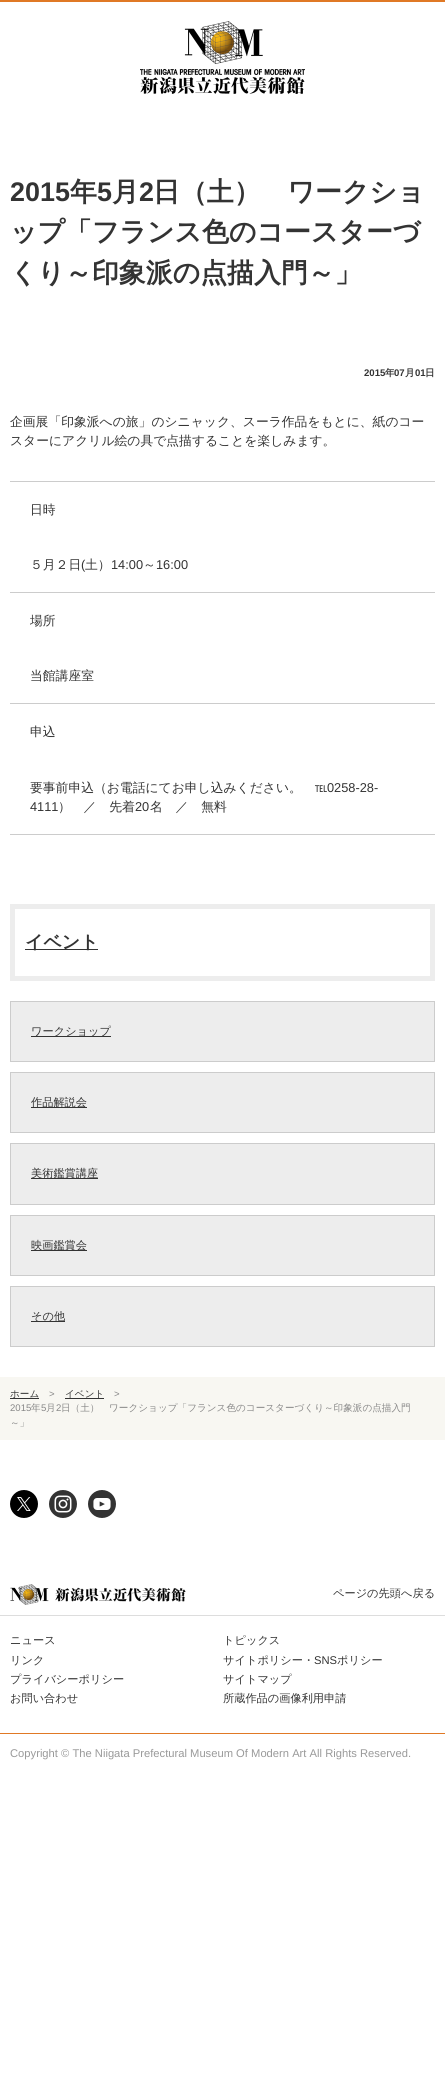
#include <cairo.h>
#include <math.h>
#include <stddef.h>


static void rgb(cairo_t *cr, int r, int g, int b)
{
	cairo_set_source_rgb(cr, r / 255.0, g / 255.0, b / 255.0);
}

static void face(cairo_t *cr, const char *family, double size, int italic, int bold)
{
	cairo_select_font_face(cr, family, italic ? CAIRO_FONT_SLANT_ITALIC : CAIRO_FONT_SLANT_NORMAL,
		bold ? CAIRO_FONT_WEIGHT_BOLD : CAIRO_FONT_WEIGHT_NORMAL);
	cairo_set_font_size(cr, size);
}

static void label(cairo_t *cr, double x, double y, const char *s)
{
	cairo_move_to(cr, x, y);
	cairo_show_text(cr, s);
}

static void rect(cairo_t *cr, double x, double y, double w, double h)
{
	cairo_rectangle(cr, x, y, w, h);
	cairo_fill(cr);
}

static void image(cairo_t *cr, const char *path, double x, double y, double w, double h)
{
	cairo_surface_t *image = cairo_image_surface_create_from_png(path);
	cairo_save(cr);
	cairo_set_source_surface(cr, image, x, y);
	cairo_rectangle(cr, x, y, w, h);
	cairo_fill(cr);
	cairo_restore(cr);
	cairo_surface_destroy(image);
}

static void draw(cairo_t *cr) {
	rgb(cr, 255, 255, 255);
	cairo_paint(cr);
	rgb(cr, 224, 121, 37);
	rect(cr, 0, 0, 445, 2);
	image(cr, "image0.png", 140, 21, 165, 73);
	face(cr, "Liberation Sans", 26.9, 0, 1);
	rgb(cr, 51, 51, 51);
	label(cr, 10, 201, "2015");
	face(cr, "WenQuanYi Zen Hei", 26.9, 0, 1);
	label(cr, 70, 201, "年");
	face(cr, "Liberation Sans", 26.9, 0, 1);
	label(cr, 97, 201, "5");
	face(cr, "WenQuanYi Zen Hei", 26.9, 0, 1);
	label(cr, 112, 201, "月");
	face(cr, "Liberation Sans", 26.9, 0, 1);
	label(cr, 139, 201, "2");
	face(cr, "WenQuanYi Zen Hei", 26.9, 0, 1);
	label(cr, 153, 201, "日（土）　ワークショ");
	label(cr, 10, 241, "ップ「フランス色のコースターづ");
	label(cr, 10, 282, "くり～印象派の点描入門～」");
	face(cr, "Liberation Sans", 9.6, 0, 1);
	label(cr, 364, 376, "2015");
	face(cr, "WenQuanYi Zen Hei", 9.6, 0, 1);
	label(cr, 385, 376, "年");
	face(cr, "Liberation Sans", 9.6, 0, 1);
	label(cr, 394, 376, "07");
	face(cr, "WenQuanYi Zen Hei", 9.6, 0, 1);
	label(cr, 405, 376, "月");
	face(cr, "Liberation Sans", 9.6, 0, 1);
	label(cr, 415, 376, "01");
	face(cr, "WenQuanYi Zen Hei", 9.6, 0, 1);
	label(cr, 425, 376, "日");
	face(cr, "WenQuanYi Zen Hei Medium", 12.8, 0, 0);
	label(cr, 10, 426, "企画展「印象派への旅」のシニャック、スーラ作品をもとに、紙のコー");
	label(cr, 10, 445, "スターにアクリル絵の具で点描することを楽しみます。");
	rgb(cr, 204, 204, 204);
	rect(cr, 10, 834, 425, 1);
	rect(cr, 10, 481, 425, 1);
	rgb(cr, 51, 51, 51);
	label(cr, 30, 514, "日時");
	label(cr, 30, 569, "５月２日");
	face(cr, "Liberation Sans", 12.8, 0, 0);
	label(cr, 81, 569, "(");
	face(cr, "WenQuanYi Zen Hei Medium", 12.8, 0, 0);
	label(cr, 85, 569, "土）");
	face(cr, "Liberation Sans", 12.8, 0, 0);
	label(cr, 111, 569, "14:00");
	face(cr, "WenQuanYi Zen Hei Medium", 12.8, 0, 0);
	label(cr, 143, 569, "～");
	face(cr, "Liberation Sans", 12.8, 0, 0);
	label(cr, 156, 569, "16:00");
	rgb(cr, 204, 204, 204);
	rect(cr, 10, 592, 425, 1);
	face(cr, "WenQuanYi Zen Hei Medium", 12.8, 0, 0);
	rgb(cr, 51, 51, 51);
	label(cr, 30, 625, "場所");
	label(cr, 30, 680, "当館講座室");
	rgb(cr, 204, 204, 204);
	rect(cr, 10, 703, 425, 1);
	rgb(cr, 51, 51, 51);
	label(cr, 30, 736, "申込");
	label(cr, 30, 792, "要事前申込（お電話にてお申し込みください。　℡");
	face(cr, "Liberation Sans", 12.8, 0, 0);
	label(cr, 327, 792, "0258-28-");
	label(cr, 30, 811, "4111");
	face(cr, "WenQuanYi Zen Hei Medium", 12.8, 0, 0);
	label(cr, 58, 811, "）　／　先着");
	face(cr, "Liberation Sans", 12.8, 0, 0);
	label(cr, 135, 811, "20");
	face(cr, "WenQuanYi Zen Hei Medium", 12.8, 0, 0);
	label(cr, 150, 811, "名　／　無料");
	cairo_rectangle(cr, 12.5, 906.5, 420, 72);
	rgb(cr, 237, 237, 237);
	cairo_set_line_width(cr, 5);
	cairo_stroke(cr);
	rgb(cr, 51, 51, 51);
	rect(cr, 25, 949, 73, 1);
	face(cr, "WenQuanYi Zen Hei", 18, 0, 1);
	label(cr, 25, 948, "イベント");
	rgb(cr, 237, 237, 237);
	cairo_rectangle(cr, 10.5, 1001.5, 424, 60);
	cairo_fill_preserve(cr);
	rgb(cr, 204, 204, 204);
	cairo_set_line_width(cr, 1);
	cairo_stroke(cr);
	rgb(cr, 51, 51, 51);
	rect(cr, 31, 1036, 80, 1);
	face(cr, "WenQuanYi Zen Hei Medium", 11.2, 0, 0);
	label(cr, 31, 1035, "ワークショップ");
	rgb(cr, 237, 237, 237);
	cairo_rectangle(cr, 10.5, 1072.5, 424, 60);
	cairo_fill_preserve(cr);
	rgb(cr, 204, 204, 204);
	cairo_stroke(cr);
	rgb(cr, 51, 51, 51);
	rect(cr, 31, 1107, 56, 1);
	label(cr, 31, 1106, "作品解説会");
	rgb(cr, 237, 237, 237);
	cairo_rectangle(cr, 10.5, 1143.5, 424, 61);
	cairo_fill_preserve(cr);
	rgb(cr, 204, 204, 204);
	cairo_stroke(cr);
	rgb(cr, 51, 51, 51);
	rect(cr, 31, 1178, 67, 1);
	label(cr, 31, 1177, "美術鑑賞講座");
	rgb(cr, 237, 237, 237);
	cairo_rectangle(cr, 10.5, 1215.5, 424, 60);
	cairo_fill_preserve(cr);
	rgb(cr, 204, 204, 204);
	cairo_stroke(cr);
	rgb(cr, 51, 51, 51);
	rect(cr, 31, 1250, 56, 1);
	label(cr, 31, 1249, "映画鑑賞会");
	rgb(cr, 237, 237, 237);
	cairo_rectangle(cr, 10.5, 1286.5, 424, 60);
	cairo_fill_preserve(cr);
	rgb(cr, 204, 204, 204);
	cairo_stroke(cr);
	rgb(cr, 51, 51, 51);
	rect(cr, 31, 1321, 34, 1);
	label(cr, 31, 1320, "その他");
	rgb(cr, 248, 247, 242);
	rect(cr, 0, 1377, 445, 63);
	face(cr, "WenQuanYi Zen Hei Medium", 9.6, 0, 0);
	rgb(cr, 51, 51, 51);
	label(cr, 10, 1397, "ホーム");
	rect(cr, 10, 1398, 29, 1);
	face(cr, "Liberation Sans", 9.6, 0, 0);
	rgb(cr, 136, 136, 136);
	label(cr, 49, 1397, ">");
	rgb(cr, 51, 51, 51);
	rect(cr, 65, 1398, 39, 1);
	face(cr, "WenQuanYi Zen Hei Medium", 9.6, 0, 0);
	label(cr, 65, 1397, "イベント");
	face(cr, "Liberation Sans", 9.6, 0, 0);
	rgb(cr, 136, 136, 136);
	label(cr, 114, 1397, ">");
	label(cr, 10, 1411, "2015");
	face(cr, "WenQuanYi Zen Hei Medium", 9.6, 0, 0);
	label(cr, 31, 1411, "年");
	face(cr, "Liberation Sans", 9.6, 0, 0);
	label(cr, 41, 1411, "5");
	face(cr, "WenQuanYi Zen Hei Medium", 9.6, 0, 0);
	label(cr, 46, 1411, "月");
	face(cr, "Liberation Sans", 9.6, 0, 0);
	label(cr, 56, 1411, "2");
	face(cr, "WenQuanYi Zen Hei Medium", 9.6, 0, 0);
	label(cr, 61, 1411, "日（土）　ワークショップ「フランス色のコースターづくり～印象派の点描入門");
	label(cr, 10, 1426, "～」");
	image(cr, "image1.png", 10, 1490, 28, 28);
	image(cr, "image2.png", 49, 1490, 28, 28);
	image(cr, "image3.png", 88, 1490, 28, 28);
	rgb(cr, 221, 221, 221);
	rect(cr, 0, 1615, 445, 1);
	image(cr, "image4.png", 10, 1584, 176, 21);
	face(cr, "WenQuanYi Zen Hei Medium", 11.2, 0, 0);
	rgb(cr, 51, 51, 51);
	label(cr, 333, 1597, "ページの先頭へ戻る");
	label(cr, 10, 1644, "ニュース");
	label(cr, 223, 1644, "トピックス");
	label(cr, 10, 1664, "リンク");
	label(cr, 223, 1664, "サイトポリシー・");
	face(cr, "Liberation Sans", 11.2, 0, 0);
	label(cr, 314, 1664, "SNS");
	face(cr, "WenQuanYi Zen Hei Medium", 11.2, 0, 0);
	label(cr, 337, 1664, "ポリシー");
	label(cr, 10, 1683, "プライバシーポリシー");
	label(cr, 223, 1683, "サイトマップ");
	label(cr, 10, 1702, "お問い合わせ");
	label(cr, 223, 1702, "所蔵作品の画像利用申請");
	rgb(cr, 224, 121, 37);
	rect(cr, 0, 1733, 445, 1);
	face(cr, "Liberation Sans", 11.2, 0, 0);
	rgb(cr, 153, 153, 153);
	label(cr, 10, 1757, "Copyright © The Niigata Prefectural Museum Of Modern Art All Rights Reserved.");
}

int main(void) {
	cairo_surface_t *surface = cairo_image_surface_create(CAIRO_FORMAT_RGB24, 445, 2093);
	cairo_t *cr = cairo_create(surface);
	cairo_font_options_t *options = cairo_font_options_create();
	cairo_font_options_set_hint_metrics(options, CAIRO_HINT_METRICS_OFF);
	cairo_font_options_set_hint_style(options, CAIRO_HINT_STYLE_NONE);
	cairo_set_font_options(cr, options);
	cairo_set_miter_limit(cr, 4);
	draw(cr);
	cairo_surface_write_to_png(surface, "render.png");
	cairo_font_options_destroy(options);
	cairo_destroy(cr);
	cairo_surface_destroy(surface);
	return 0;
}
